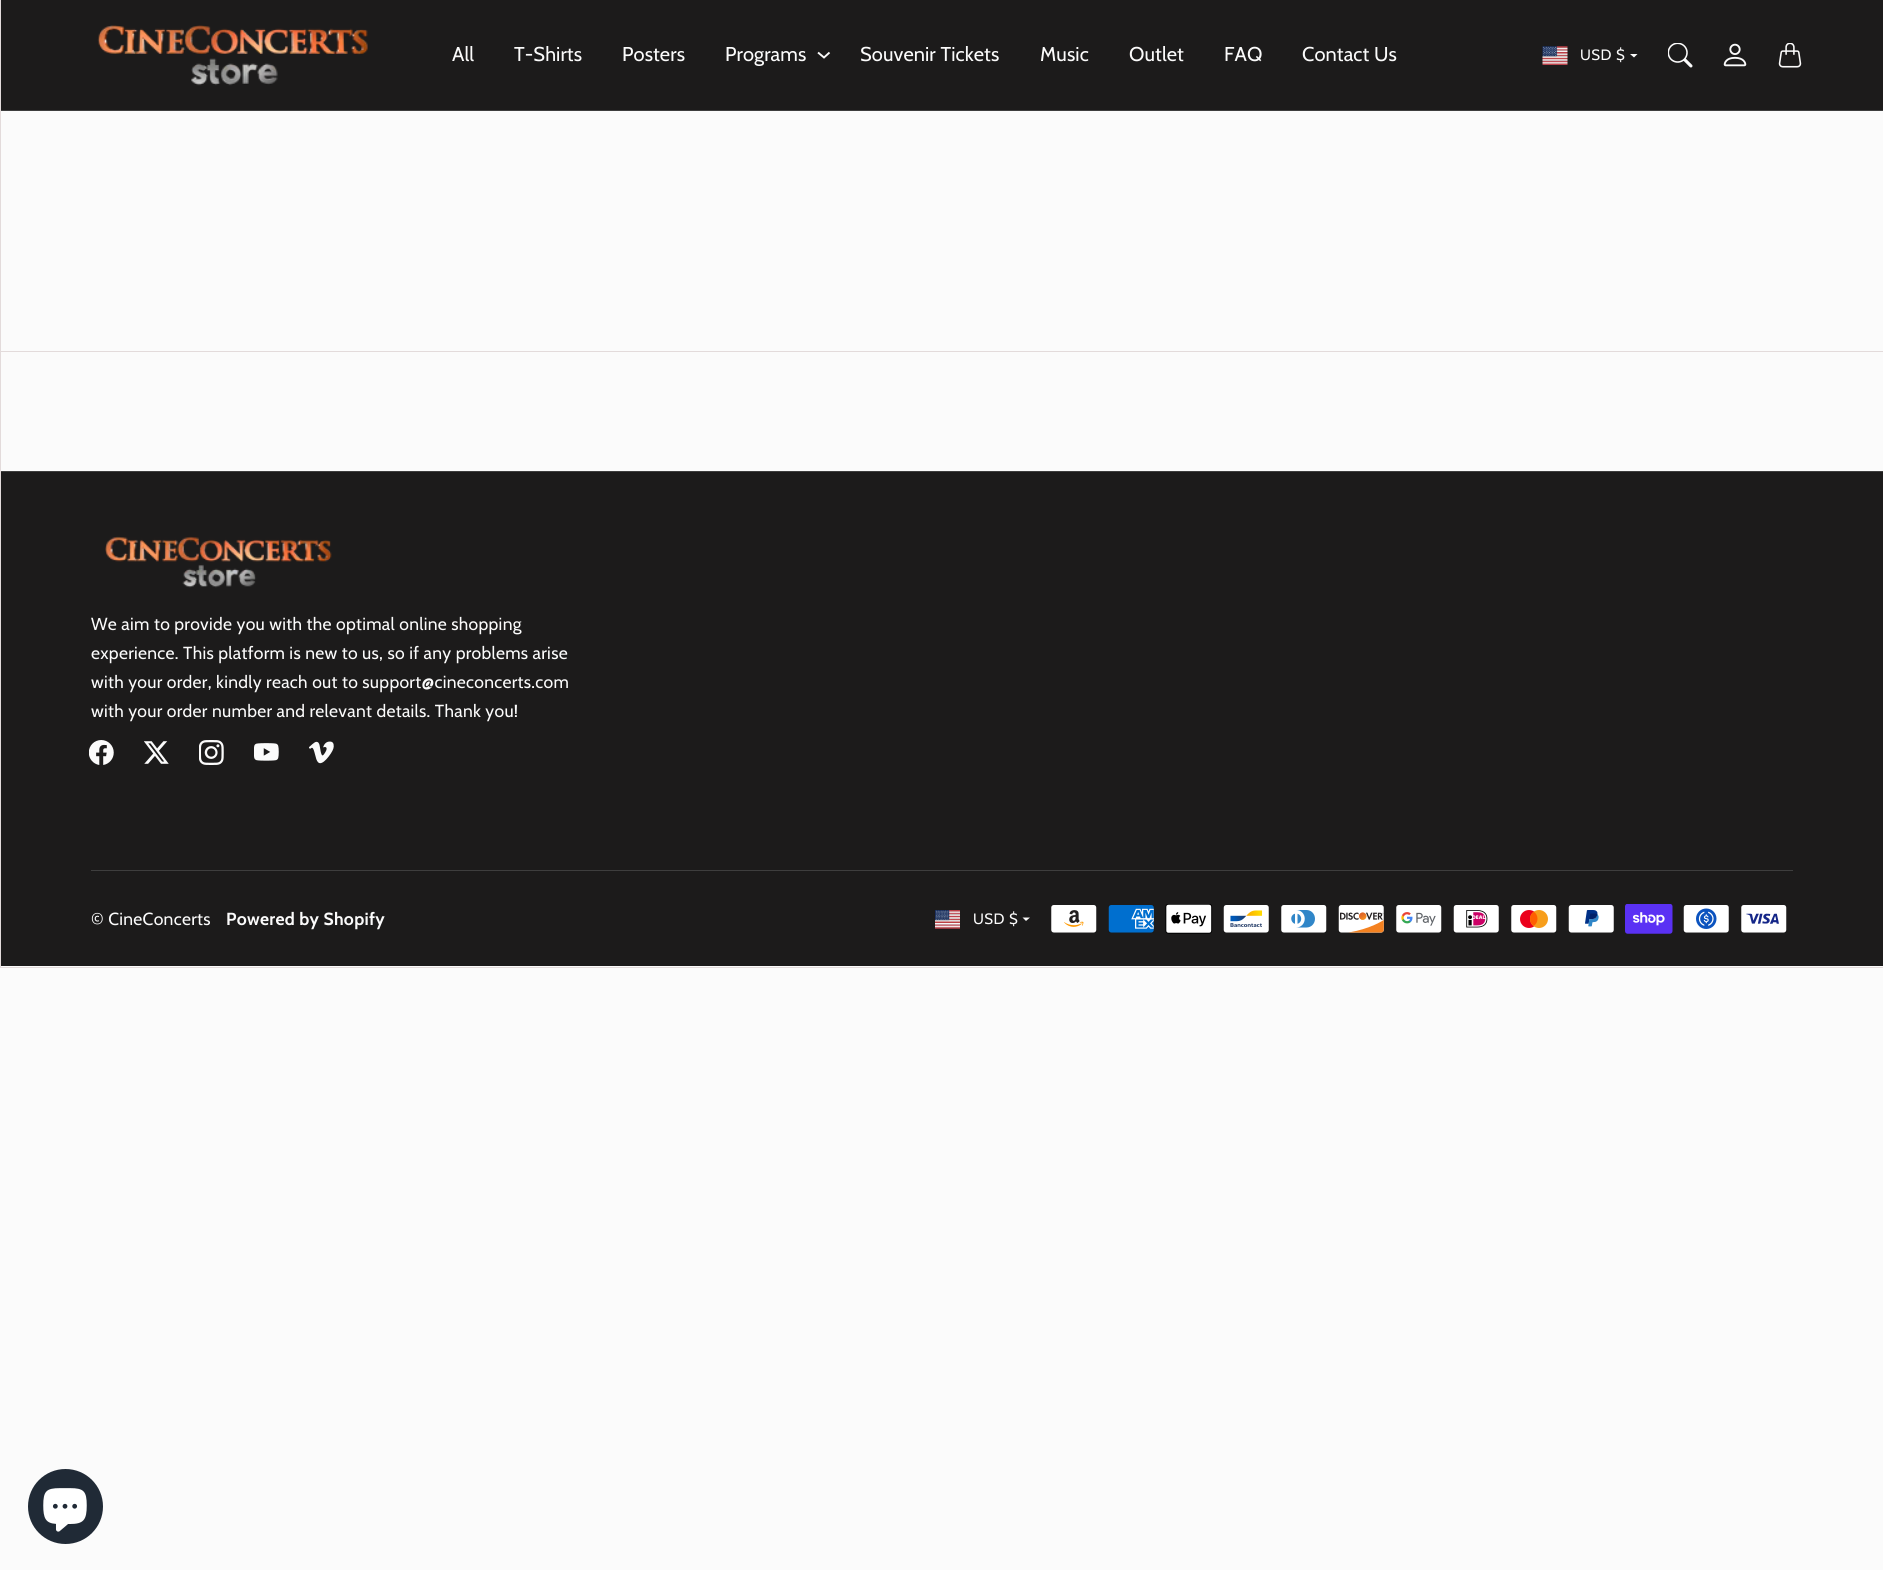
#include <cairo.h>
#include <math.h>
#include <stddef.h>


static void rgb(cairo_t *cr, int r, int g, int b)
{
	cairo_set_source_rgb(cr, r / 255.0, g / 255.0, b / 255.0);
}

static void face(cairo_t *cr, const char *family, double size, int italic, int bold)
{
	cairo_select_font_face(cr, family, italic ? CAIRO_FONT_SLANT_ITALIC : CAIRO_FONT_SLANT_NORMAL,
		bold ? CAIRO_FONT_WEIGHT_BOLD : CAIRO_FONT_WEIGHT_NORMAL);
	cairo_set_font_size(cr, size);
}

static void tracked(cairo_t *cr, double x, double y, const char *s, double letter, double word)
{
	cairo_move_to(cr, x, y);
	while (*s) {
		char ch[5] = {0};
		int n = 0;
		do ch[n++] = *s++; while ((*s & 0xC0) == 0x80);
		cairo_show_text(cr, ch);
		cairo_rel_move_to(cr, letter + word * (*ch == ' '), 0);
	}
}

static void rect(cairo_t *cr, double x, double y, double w, double h)
{
	cairo_rectangle(cr, x, y, w, h);
	cairo_fill(cr);
}

static void image(cairo_t *cr, const char *path, double x, double y, double w, double h)
{
	cairo_surface_t *image = cairo_image_surface_create_from_png(path);
	cairo_save(cr);
	cairo_set_source_surface(cr, image, x, y);
	cairo_rectangle(cr, x, y, w, h);
	cairo_fill(cr);
	cairo_restore(cr);
	cairo_surface_destroy(image);
}

static void draw(cairo_t *cr) {
	rgb(cr, 251, 251, 251);
	cairo_paint(cr);
	cairo_rectangle(cr, 0.5, 0.5, 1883, 967);
	rgb(cr, 227, 219, 219);
	cairo_set_line_width(cr, 1);
	cairo_stroke(cr);
	rgb(cr, 28, 27, 27);
	rect(cr, 1, 0, 1882, 110);
	rgb(cr, 62, 62, 62);
	rect(cr, 1, 110, 1882, 1);
	image(cr, "image0.png", 97, 25, 271, 61);
	face(cr, "Cabin", 20, 0, 0);
	rgb(cr, 251, 251, 251);
	tracked(cr, 452, 61, "All", 0.1, 0);
	tracked(cr, 514, 61, "T-Shirts", 0.1, 0);
	tracked(cr, 622, 61, "Posters", 0.1, 0);
	tracked(cr, 725, 61, "Programs", 0.1, 0);
	cairo_new_path(cr);
	cairo_move_to(cr, 818, 52.5);
	cairo_line_to(cr, 824, 57.5);
	cairo_line_to(cr, 829.5, 52.5);
	cairo_set_line_width(cr, 1.9);
	cairo_stroke(cr);
	tracked(cr, 860, 61, "Souvenir Tickets", 0.1, 0);
	tracked(cr, 1040, 61, "Music", 0.1, 0);
	tracked(cr, 1129, 61, "Outlet", 0.1, 0);
	tracked(cr, 1224, 61, "FAQ", 0.1, 0);
	tracked(cr, 1302, 61, "Contact Us", 0.1, 0);
	image(cr, "image1.png", 1542, 46, 26, 19);
	face(cr, "Cabin", 15, 0, 0);
	tracked(cr, 1580, 60, "USD $", 0.5, 0);
	cairo_new_path(cr);
	cairo_move_to(cr, 1630, 54);
	cairo_line_to(cr, 1637.5, 54);
	cairo_line_to(cr, 1634, 57.5);
	cairo_close_path(cr);
	cairo_fill(cr);
	image(cr, "image2.png", 1668, 43, 25, 25);
	image(cr, "image3.png", 1723, 43, 24, 24);
	image(cr, "image4.png", 1778, 43, 24, 25);
	rgb(cr, 227, 219, 219);
	rect(cr, 1, 351, 1882, 1);
	rgb(cr, 28, 27, 27);
	rect(cr, 1, 472, 1882, 494);
	rgb(cr, 62, 62, 62);
	rect(cr, 1, 471, 1882, 1);
	image(cr, "image5.png", 105, 536, 227, 52);
	face(cr, "Cabin", 17.5, 0, 0);
	rgb(cr, 251, 251, 251);
	tracked(cr, 91, 630, "We aim to provide you with the optimal online shopping", 0.3, 0);
	tracked(cr, 91, 659, "experience. This platform is new to us, so if any problems arise", 0.3, 0);
	tracked(cr, 91, 688, "with your order, kindly reach out to support@cineconcerts.com", 0.3, 0);
	tracked(cr, 91, 717, "with your order number and relevant details. Thank you!", 0.3, 0);
	image(cr, "image6.png", 89, 740, 25, 25);
	image(cr, "image7.png", 144, 741, 25, 23);
	image(cr, "image8.png", 199, 740, 25, 25);
	image(cr, "image9.png", 254, 743, 25, 18);
	image(cr, "image10.png", 309, 741, 25, 23);
	rgb(cr, 62, 62, 62);
	rect(cr, 91, 870, 1702, 1);
	rgb(cr, 251, 251, 251);
	tracked(cr, 91, 925, "© CineConcerts", 0.3, 0);
	face(cr, "Cabin", 17.5, 0, 1);
	tracked(cr, 226, 925, "Powered by Shopify", 0.3, 0);
	image(cr, "image11.png", 935, 910, 25, 19);
	face(cr, "Cabin", 15, 0, 0);
	tracked(cr, 973, 924, "USD $", 0.5, 0);
	cairo_new_path(cr);
	cairo_move_to(cr, 1022.5, 917.5);
	cairo_line_to(cr, 1030, 917.5);
	cairo_line_to(cr, 1026, 921);
	cairo_close_path(cr);
	cairo_fill(cr);
	image(cr, "image12.png", 1051, 905, 46, 28);
	image(cr, "image13.png", 1108, 905, 46, 28);
	image(cr, "image14.png", 1165, 904, 48, 30);
	image(cr, "image15.png", 1223, 905, 46, 28);
	image(cr, "image16.png", 1281, 905, 46, 28);
	image(cr, "image17.png", 1338, 905, 46, 28);
	image(cr, "image18.png", 1396, 905, 46, 28);
	image(cr, "image19.png", 1453, 905, 46, 28);
	image(cr, "image20.png", 1511, 905, 46, 28);
	image(cr, "image21.png", 1568, 905, 46, 28);
	image(cr, "image22.png", 1625, 904, 48, 30);
	image(cr, "image23.png", 1683, 905, 46, 28);
	image(cr, "image24.png", 1741, 905, 46, 28);
	rgb(cr, 32, 42, 54);
	cairo_arc(cr, 65.5, 1506.5, 37.5, 0, 2 * M_PI);
	cairo_fill(cr);
	image(cr, "image25.png", 43, 1488, 44, 44);
}

int main(void) {
	cairo_surface_t *surface = cairo_image_surface_create(CAIRO_FORMAT_RGB24, 1883, 1570);
	cairo_t *cr = cairo_create(surface);
	cairo_font_options_t *options = cairo_font_options_create();
	cairo_font_options_set_hint_metrics(options, CAIRO_HINT_METRICS_OFF);
	cairo_font_options_set_hint_style(options, CAIRO_HINT_STYLE_NONE);
	cairo_set_font_options(cr, options);
	cairo_set_miter_limit(cr, 4);
	draw(cr);
	cairo_surface_write_to_png(surface, "render.png");
	cairo_font_options_destroy(options);
	cairo_destroy(cr);
	cairo_surface_destroy(surface);
	return 0;
}
